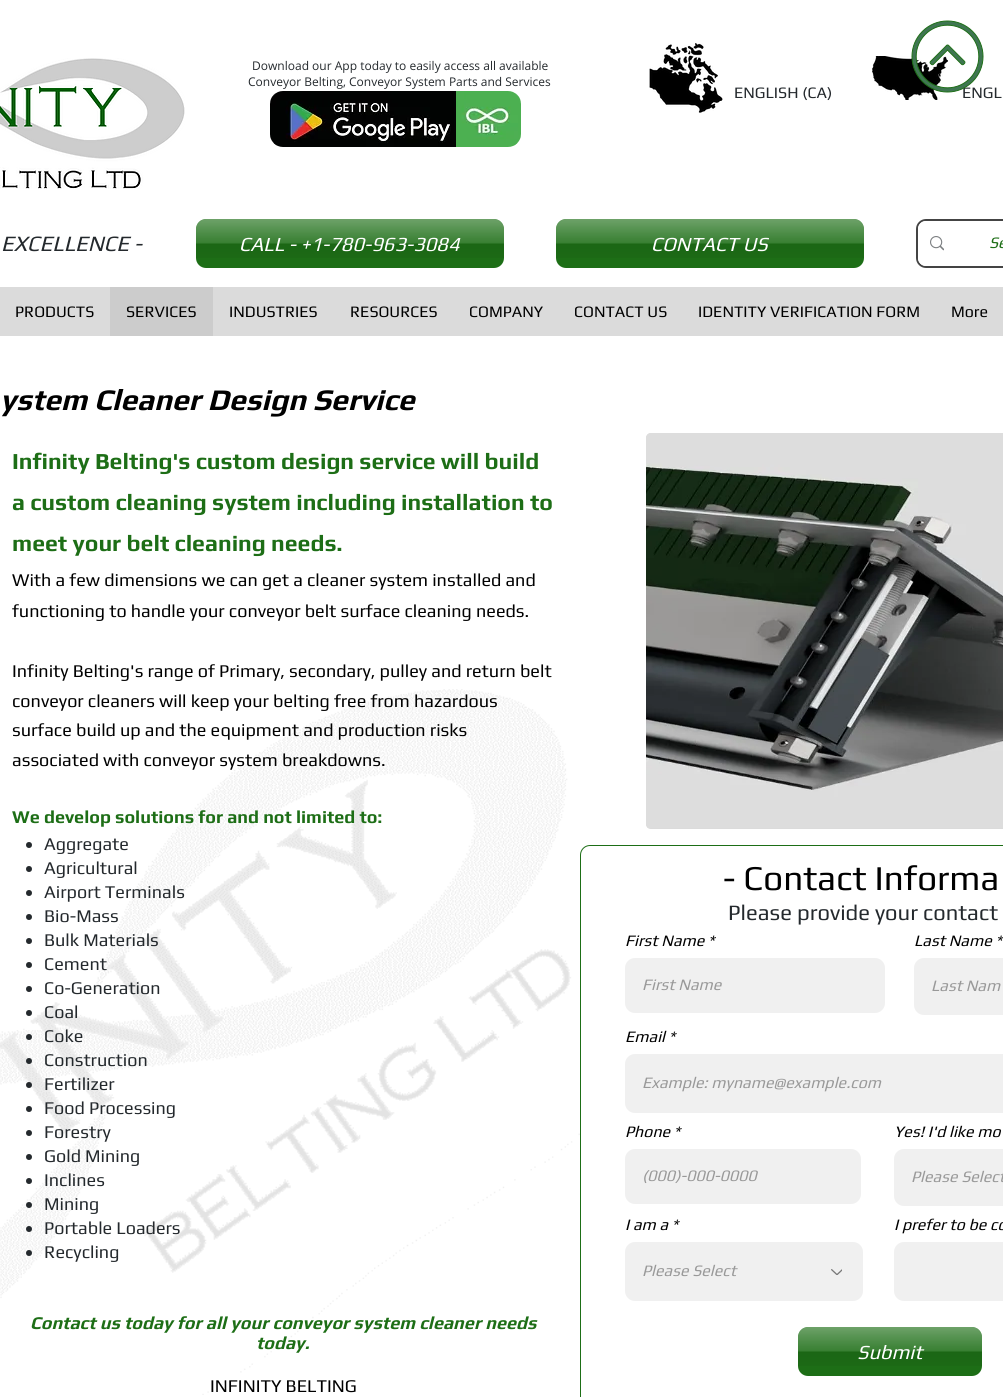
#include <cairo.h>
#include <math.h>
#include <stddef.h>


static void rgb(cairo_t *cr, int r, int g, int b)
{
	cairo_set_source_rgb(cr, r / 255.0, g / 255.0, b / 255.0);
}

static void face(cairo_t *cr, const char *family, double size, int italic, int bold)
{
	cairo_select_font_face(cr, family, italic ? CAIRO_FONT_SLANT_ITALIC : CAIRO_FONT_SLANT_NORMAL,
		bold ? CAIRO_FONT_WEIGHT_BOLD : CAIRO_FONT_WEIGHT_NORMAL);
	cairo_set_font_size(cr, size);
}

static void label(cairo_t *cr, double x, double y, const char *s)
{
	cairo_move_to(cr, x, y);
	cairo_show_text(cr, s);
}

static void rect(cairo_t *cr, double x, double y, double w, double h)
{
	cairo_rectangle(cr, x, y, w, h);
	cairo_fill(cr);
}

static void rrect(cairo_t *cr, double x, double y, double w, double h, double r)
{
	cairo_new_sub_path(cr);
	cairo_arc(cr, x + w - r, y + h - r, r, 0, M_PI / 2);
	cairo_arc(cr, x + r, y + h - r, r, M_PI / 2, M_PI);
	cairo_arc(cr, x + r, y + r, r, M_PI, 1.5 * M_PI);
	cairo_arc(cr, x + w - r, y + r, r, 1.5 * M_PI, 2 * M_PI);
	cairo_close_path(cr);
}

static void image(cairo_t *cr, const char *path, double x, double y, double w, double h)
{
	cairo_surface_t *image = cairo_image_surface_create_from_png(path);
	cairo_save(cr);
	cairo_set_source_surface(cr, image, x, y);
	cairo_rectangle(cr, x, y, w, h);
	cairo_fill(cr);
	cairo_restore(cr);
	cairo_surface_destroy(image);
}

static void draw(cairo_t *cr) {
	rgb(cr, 255, 255, 255);
	cairo_paint(cr);
	image(cr, "image3.png", 872, 56, 76, 44);
	face(cr, "Play", 16, 0, 0);
	rgb(cr, 36, 41, 45);
	label(cr, 962, 98, "ENGL");
	image(cr, "image0.png", 911, 20, 73, 73);
	image(cr, "image1.png", 0, 58, 185, 131);
	face(cr, "Open Sans", 12, 0, 0);
	label(cr, 252, 70, "Download our App today to easily access all available");
	label(cr, 248, 86, "Conveyor Belting, Conveyor System Parts and Services");
	image(cr, "image2.png", 649, 43, 74, 70);
	image(cr, "image4.png", 270, 91, 186, 56);
	image(cr, "image5.png", 456, 91, 65, 56);
	face(cr, "Play", 16, 0, 0);
	label(cr, 734, 98, "ENGLISH (CA)");
	face(cr, "Play", 22, 1, 0);
	label(cr, 1, 251, "EXCELLENCE -");
	rgb(cr, 29, 110, 22);
	rrect(cr, 196, 219, 308, 49, 10);
	cairo_fill(cr);
	image(cr, "image6.png", 196, 219, 308, 39);
	face(cr, "Play", 20, 1, 0);
	rgb(cr, 255, 255, 255);
	label(cr, 239, 251, "CALL - +1-780-963-3084");
	rgb(cr, 29, 110, 22);
	rrect(cr, 556, 219, 308, 49, 10);
	cairo_fill(cr);
	image(cr, "image7.png", 556, 219, 308, 39);
	rgb(cr, 255, 255, 255);
	label(cr, 651, 251, "CONTACT US");
	rrect(cr, 917, 220, 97, 47, 9);
	rgb(cr, 68, 68, 68);
	cairo_stroke(cr);
	rgb(cr, 255, 255, 255);
	rrect(cr, 918, 221, 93, 45, 8);
	cairo_fill(cr);
	image(cr, "image8.png", 930, 236, 14, 15);
	face(cr, "Play", 16, 1, 0);
	rgb(cr, 29, 110, 22);
	label(cr, 989, 248, "Se");
	rgb(cr, 219, 219, 219);
	rect(cr, 0, 287, 1003, 49);
	face(cr, "Play", 16, 0, 0);
	rgb(cr, 0, 0, 0);
	label(cr, 15, 317, "PRODUCTS");
	rgb(cr, 204, 204, 204);
	rect(cr, 110, 287, 103, 49);
	rgb(cr, 0, 0, 0);
	label(cr, 126, 317, "SERVICES");
	label(cr, 229, 317, "INDUSTRIES");
	label(cr, 350, 317, "RESOURCES");
	label(cr, 469, 317, "COMPANY");
	label(cr, 574, 317, "CONTACT US");
	label(cr, 698, 317, "IDENTITY VERIFICATION FORM");
	label(cr, 951, 317, "More");
	face(cr, "Play", 30, 1, 1);
	label(cr, 0, 410, "ystem Cleaner Design Service");
	face(cr, "Play", 23, 0, 1);
	rgb(cr, 29, 110, 22);
	label(cr, 12, 469, "Infinity Belting's custom design service will build");
	label(cr, 12, 510, "a custom cleaning system including installation to");
	label(cr, 12, 551, "meet your belt cleaning needs.");
	face(cr, "Play", 18, 0, 0);
	rgb(cr, 0, 0, 0);
	label(cr, 12, 586, "With a few dimensions we can get a cleaner system installed and");
	label(cr, 12, 617, "functioning to handle your conveyor belt surface cleaning needs.");
	label(cr, 12, 677, "Infinity Belting's range of Primary, secondary, pulley and return belt");
	image(cr, "image10.png", 0, 689, 634, 706);
	label(cr, 12, 707, "conveyor cleaners will keep your belting free from hazardous");
	label(cr, 12, 736, "surface build up and the equipment and production risks");
	label(cr, 12, 766, "associated with conveyor system breakdowns.");
	face(cr, "Play", 18, 0, 1);
	rgb(cr, 29, 110, 22);
	label(cr, 12, 823, "We develop solutions for and not limited to:");
	rgb(cr, 36, 41, 45);
	cairo_new_path(cr);
	cairo_arc(cr, 29, 845, 3, 0, 2 * M_PI);
	cairo_fill(cr);
	face(cr, "Play", 18, 0, 0);
	label(cr, 44, 850, "Aggregate");
	cairo_new_path(cr);
	cairo_arc(cr, 29, 869, 3, 0, 2 * M_PI);
	cairo_fill(cr);
	label(cr, 44, 874, "Agricultural");
	cairo_new_path(cr);
	cairo_arc(cr, 29, 893, 3, 0, 2 * M_PI);
	cairo_fill(cr);
	label(cr, 44, 898, "Airport Terminals");
	cairo_new_path(cr);
	cairo_arc(cr, 29, 917, 3, 0, 2 * M_PI);
	cairo_fill(cr);
	label(cr, 44, 922, "Bio-Mass");
	cairo_new_path(cr);
	cairo_arc(cr, 29, 941, 3, 0, 2 * M_PI);
	cairo_fill(cr);
	label(cr, 44, 946, "Bulk Materials");
	cairo_new_path(cr);
	cairo_arc(cr, 29, 965, 3, 0, 2 * M_PI);
	cairo_fill(cr);
	label(cr, 44, 970, "Cement");
	cairo_new_path(cr);
	cairo_arc(cr, 29, 989, 3, 0, 2 * M_PI);
	cairo_fill(cr);
	label(cr, 44, 994, "Co-Generation");
	cairo_new_path(cr);
	cairo_arc(cr, 29, 1013, 3, 0, 2 * M_PI);
	cairo_fill(cr);
	label(cr, 44, 1018, "Coal");
	cairo_new_path(cr);
	cairo_arc(cr, 29, 1037, 3, 0, 2 * M_PI);
	cairo_fill(cr);
	label(cr, 44, 1042, "Coke");
	cairo_new_path(cr);
	cairo_arc(cr, 29, 1061, 3, 0, 2 * M_PI);
	cairo_fill(cr);
	label(cr, 44, 1066, "Construction");
	cairo_new_path(cr);
	cairo_arc(cr, 29, 1085, 3, 0, 2 * M_PI);
	cairo_fill(cr);
	label(cr, 44, 1090, "Fertilizer");
	cairo_new_path(cr);
	cairo_arc(cr, 29, 1109, 3, 0, 2 * M_PI);
	cairo_fill(cr);
	label(cr, 44, 1114, "Food Processing");
	cairo_new_path(cr);
	cairo_arc(cr, 29, 1133, 3, 0, 2 * M_PI);
	cairo_fill(cr);
	label(cr, 44, 1138, "Forestry");
	cairo_new_path(cr);
	cairo_arc(cr, 29, 1157, 3, 0, 2 * M_PI);
	cairo_fill(cr);
	label(cr, 44, 1162, "Gold Mining");
	cairo_new_path(cr);
	cairo_arc(cr, 29, 1181, 3, 0, 2 * M_PI);
	cairo_fill(cr);
	label(cr, 44, 1186, "Inclines");
	cairo_new_path(cr);
	cairo_arc(cr, 29, 1205, 3, 0, 2 * M_PI);
	cairo_fill(cr);
	label(cr, 44, 1210, "Mining");
	cairo_new_path(cr);
	cairo_arc(cr, 29, 1229, 3, 0, 2 * M_PI);
	cairo_fill(cr);
	label(cr, 44, 1234, "Portable Loaders");
	cairo_new_path(cr);
	cairo_arc(cr, 29, 1253, 3, 0, 2 * M_PI);
	cairo_fill(cr);
	label(cr, 44, 1258, "Recycling");
	rgb(cr, 219, 219, 219);
	cairo_new_path(cr);
	cairo_move_to(cr, 651, 433);
	cairo_line_to(cr, 1003, 433);
	cairo_line_to(cr, 1003, 829);
	cairo_line_to(cr, 651, 829);
	cairo_curve_to(cr, 648, 829, 646, 827, 646, 824);
	cairo_line_to(cr, 646, 438);
	cairo_curve_to(cr, 646, 435, 648, 433, 651, 433);
	cairo_close_path(cr);
	cairo_fill(cr);
	image(cr, "image9.png", 646, 433, 357, 395);
	rgb(cr, 255, 255, 255);
	cairo_new_path(cr);
	cairo_move_to(cr, 590, 845);
	cairo_line_to(cr, 1003, 845);
	cairo_line_to(cr, 1003, 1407);
	cairo_line_to(cr, 590, 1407);
	cairo_curve_to(cr, 584.5, 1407, 580, 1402.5, 580, 1397);
	cairo_line_to(cr, 580, 855);
	cairo_curve_to(cr, 580, 849.5, 584.5, 845, 590, 845);
	cairo_close_path(cr);
	cairo_fill(cr);
	rrect(cr, 580.5, 845.5, 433, 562, 9.5);
	rgb(cr, 29, 110, 22);
	cairo_set_line_width(cr, 1);
	cairo_stroke(cr);
	face(cr, "Play", 35, 0, 0);
	rgb(cr, 0, 0, 0);
	label(cr, 723, 890, "- Contact Informa");
	face(cr, "Play", 22, 0, 0);
	rgb(cr, 36, 41, 45);
	label(cr, 728, 920, "Please provide your contact");
	face(cr, "Play", 16, 1, 0);
	rgb(cr, 0, 0, 0);
	label(cr, 625, 946, "First Name *");
	rgb(cr, 240, 240, 240);
	rrect(cr, 625, 958, 260, 55, 10);
	cairo_fill(cr);
	rgb(cr, 153, 153, 153);
	label(cr, 642, 990, "First Name");
	rgb(cr, 0, 0, 0);
	label(cr, 914, 946, "Last Name *");
	rgb(cr, 240, 240, 240);
	cairo_new_path(cr);
	cairo_move_to(cr, 924, 958);
	cairo_line_to(cr, 1003, 958);
	cairo_line_to(cr, 1003, 1015);
	cairo_line_to(cr, 924, 1015);
	cairo_curve_to(cr, 918.5, 1015, 914, 1010.5, 914, 1005);
	cairo_line_to(cr, 914, 968);
	cairo_curve_to(cr, 914, 962.5, 918.5, 958, 924, 958);
	cairo_close_path(cr);
	cairo_fill(cr);
	rgb(cr, 153, 153, 153);
	label(cr, 931, 991, "Last Nam");
	rgb(cr, 0, 0, 0);
	label(cr, 625, 1042, "Email *");
	rgb(cr, 240, 240, 240);
	cairo_new_path(cr);
	cairo_move_to(cr, 635, 1054);
	cairo_line_to(cr, 1003, 1054);
	cairo_line_to(cr, 1003, 1113);
	cairo_line_to(cr, 635, 1113);
	cairo_curve_to(cr, 629.5, 1113, 625, 1108.5, 625, 1103);
	cairo_line_to(cr, 625, 1064);
	cairo_curve_to(cr, 625, 1058.5, 629.5, 1054, 635, 1054);
	cairo_close_path(cr);
	cairo_fill(cr);
	rgb(cr, 153, 153, 153);
	label(cr, 642, 1088, "Example: myname@example.com");
	rgb(cr, 0, 0, 0);
	label(cr, 625, 1137, "Phone *");
	rgb(cr, 240, 240, 240);
	rrect(cr, 625, 1149, 236, 55, 10);
	cairo_fill(cr);
	rgb(cr, 153, 153, 153);
	label(cr, 642, 1181, "(000)-000-0000");
	rgb(cr, 0, 0, 0);
	label(cr, 894, 1137, "Yes! I'd like mo");
	rgb(cr, 240, 240, 240);
	cairo_new_path(cr);
	cairo_move_to(cr, 904, 1149);
	cairo_line_to(cr, 1003, 1149);
	cairo_line_to(cr, 1003, 1206);
	cairo_line_to(cr, 904, 1206);
	cairo_curve_to(cr, 898.5, 1206, 894, 1201.5, 894, 1196);
	cairo_line_to(cr, 894, 1159);
	cairo_curve_to(cr, 894, 1153.5, 898.5, 1149, 904, 1149);
	cairo_close_path(cr);
	cairo_fill(cr);
	rgb(cr, 153, 153, 153);
	label(cr, 911, 1182, "Please Select");
	rgb(cr, 0, 0, 0);
	label(cr, 625, 1230, "I am a *");
	rgb(cr, 240, 240, 240);
	rrect(cr, 625, 1242, 238, 59, 10);
	cairo_fill(cr);
	rgb(cr, 153, 153, 153);
	label(cr, 642, 1276, "Please Select");
	image(cr, "image11.png", 831, 1269, 11, 6);
	rgb(cr, 0, 0, 0);
	label(cr, 894, 1230, "I prefer to be co");
	rgb(cr, 240, 240, 240);
	cairo_new_path(cr);
	cairo_move_to(cr, 904, 1242);
	cairo_line_to(cr, 1003, 1242);
	cairo_line_to(cr, 1003, 1301);
	cairo_line_to(cr, 904, 1301);
	cairo_curve_to(cr, 898.5, 1301, 894, 1296.5, 894, 1291);
	cairo_line_to(cr, 894, 1252);
	cairo_curve_to(cr, 894, 1246.5, 898.5, 1242, 904, 1242);
	cairo_close_path(cr);
	cairo_fill(cr);
	rgb(cr, 29, 110, 22);
	rrect(cr, 798, 1327, 184, 49, 10);
	cairo_fill(cr);
	image(cr, "image12.png", 798, 1327, 184, 39);
	face(cr, "Play", 20, 1, 0);
	rgb(cr, 255, 255, 255);
	label(cr, 857, 1359, "Submit");
	face(cr, "Play", 18, 1, 1);
	rgb(cr, 29, 110, 22);
	label(cr, 30, 1329, "Contact us today for all your conveyor system cleaner needs");
	label(cr, 256, 1349, "today.");
	face(cr, "Play", 18, 0, 0);
	rgb(cr, 0, 0, 0);
	label(cr, 210, 1392, "INFINITY BELTING");
}

int main(void) {
	cairo_surface_t *surface = cairo_image_surface_create(CAIRO_FORMAT_RGB24, 1003, 1397);
	cairo_t *cr = cairo_create(surface);
	cairo_font_options_t *options = cairo_font_options_create();
	cairo_font_options_set_hint_metrics(options, CAIRO_HINT_METRICS_OFF);
	cairo_font_options_set_hint_style(options, CAIRO_HINT_STYLE_NONE);
	cairo_set_font_options(cr, options);
	cairo_set_miter_limit(cr, 4);
	draw(cr);
	cairo_surface_write_to_png(surface, "render.png");
	cairo_font_options_destroy(options);
	cairo_destroy(cr);
	cairo_surface_destroy(surface);
	return 0;
}
